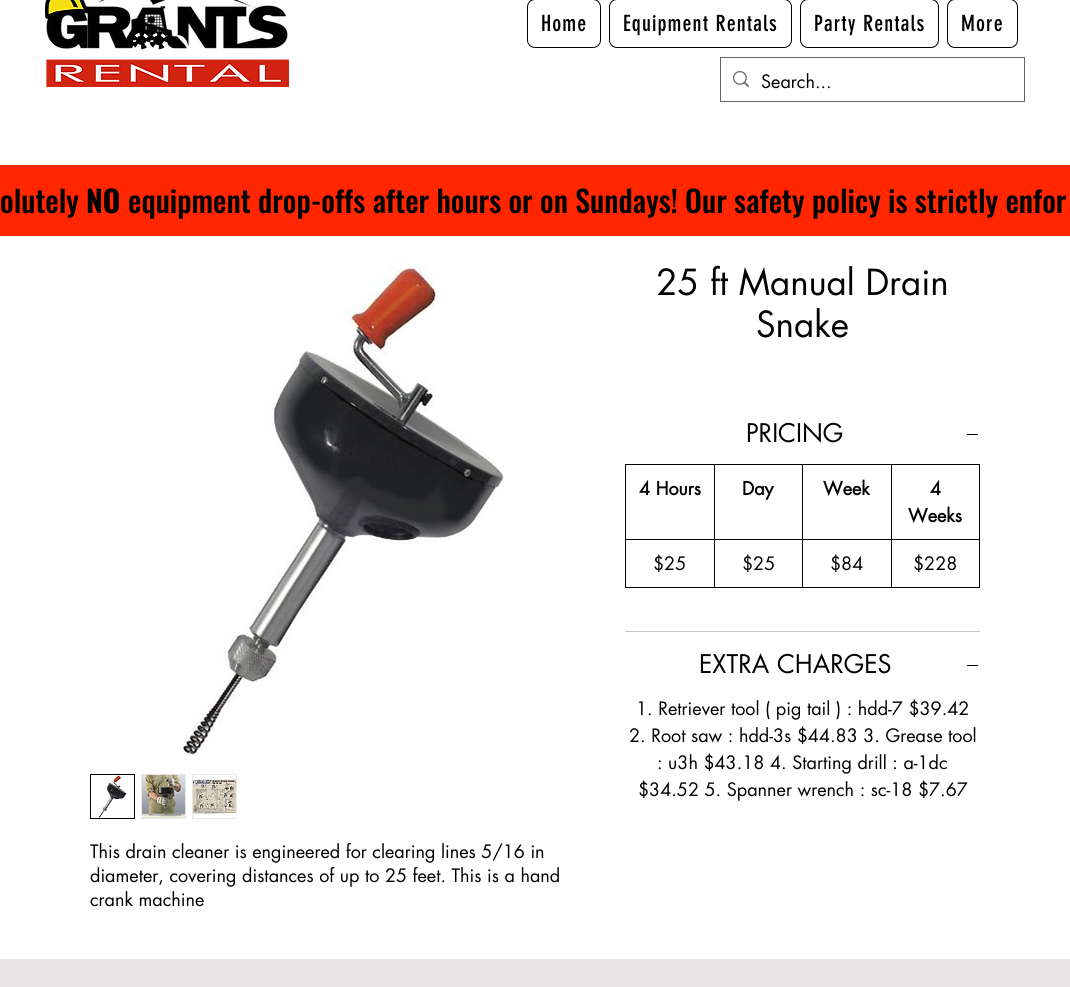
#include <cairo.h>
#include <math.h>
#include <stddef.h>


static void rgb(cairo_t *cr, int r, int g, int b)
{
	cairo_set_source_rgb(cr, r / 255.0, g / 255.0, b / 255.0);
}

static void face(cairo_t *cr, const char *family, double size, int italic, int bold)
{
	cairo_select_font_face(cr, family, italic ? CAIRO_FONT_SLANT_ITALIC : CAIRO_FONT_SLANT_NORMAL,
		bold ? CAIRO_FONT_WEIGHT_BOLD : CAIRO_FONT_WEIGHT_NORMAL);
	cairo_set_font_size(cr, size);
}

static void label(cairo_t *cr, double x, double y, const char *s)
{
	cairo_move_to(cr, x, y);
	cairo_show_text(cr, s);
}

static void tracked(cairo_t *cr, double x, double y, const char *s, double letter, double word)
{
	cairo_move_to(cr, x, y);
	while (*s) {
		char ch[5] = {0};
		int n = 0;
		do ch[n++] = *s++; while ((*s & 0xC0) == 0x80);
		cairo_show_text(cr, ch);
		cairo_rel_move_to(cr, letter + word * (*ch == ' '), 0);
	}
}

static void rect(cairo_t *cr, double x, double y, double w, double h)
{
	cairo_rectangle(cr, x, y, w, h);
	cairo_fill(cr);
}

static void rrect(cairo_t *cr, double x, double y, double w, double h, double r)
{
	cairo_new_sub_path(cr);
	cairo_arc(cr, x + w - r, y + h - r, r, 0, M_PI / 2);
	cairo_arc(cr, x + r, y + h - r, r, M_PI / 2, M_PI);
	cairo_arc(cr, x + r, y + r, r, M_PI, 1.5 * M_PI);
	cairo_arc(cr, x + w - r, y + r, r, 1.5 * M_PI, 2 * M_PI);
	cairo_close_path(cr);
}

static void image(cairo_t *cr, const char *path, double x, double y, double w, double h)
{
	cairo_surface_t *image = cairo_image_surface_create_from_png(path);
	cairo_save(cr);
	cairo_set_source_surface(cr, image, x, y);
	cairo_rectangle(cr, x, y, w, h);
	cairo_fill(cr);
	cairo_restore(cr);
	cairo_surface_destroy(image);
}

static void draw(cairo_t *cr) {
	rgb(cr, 255, 255, 255);
	cairo_paint(cr);
	image(cr, "image0.png", 45, 0, 244, 87);
	rrect(cr, 527.5, -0.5, 73, 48, 7.5);
	rgb(cr, 0, 0, 0);
	cairo_set_line_width(cr, 1);
	cairo_stroke(cr);
	face(cr, "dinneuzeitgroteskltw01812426", 22, 0, 0);
	tracked(cr, 541, 31, "Home", 1.1, 0);
	rrect(cr, 609.5, -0.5, 182, 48, 7.5);
	cairo_stroke(cr);
	tracked(cr, 623, 31, "Equipment Rentals", 1.1, 0);
	rrect(cr, 800.5, -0.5, 138, 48, 7.5);
	cairo_stroke(cr);
	tracked(cr, 814, 31, "Party Rentals", 1.1, 0);
	rrect(cr, 947.5, -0.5, 70, 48, 7.5);
	cairo_stroke(cr);
	tracked(cr, 961, 31, "More", 1.1, 0);
	cairo_rectangle(cr, 720.5, 57.5, 304, 44);
	rgb(cr, 102, 102, 102);
	cairo_stroke(cr);
	image(cr, "image1.png", 733, 71, 16, 17);
	face(cr, "futura", 18, 0, 0);
	rgb(cr, 0, 0, 0);
	label(cr, 761, 88, "Search...");
	rgb(cr, 255, 38, 0);
	rect(cr, 0, 165, 1070, 71);
	face(cr, "Oswald Medium", 30, 0, 0);
	rgb(cr, 0, 0, 0);
	label(cr, 0, 213, "olutely");
	face(cr, "Oswald", 30, 0, 1);
	label(cr, 86, 213, "NO");
	face(cr, "Oswald Medium", 30, 0, 0);
	label(cr, 128, 213, "equipment drop-offs after hours or on Sundays! Our safety policy is strictly enfor");
	face(cr, "futura", 35, 0, 0);
	label(cr, 656, 295, "25 ft Manual Drain");
	label(cr, 756, 337, "Snake");
	rgb(cr, 199, 199, 199);
	rect(cr, 625, 631, 355, 1);
	face(cr, "futura", 25, 0, 0);
	rgb(cr, 0, 0, 0);
	label(cr, 746, 442, "PRICING");
	rect(cr, 967, 434, 11, 1);
	rect(cr, 891, 464, 89, 1);
	rect(cr, 891, 539, 89, 1);
	rect(cr, 979, 539, 1, 49);
	rect(cr, 891, 587, 89, 1);
	rect(cr, 891, 539, 1, 49);
	rect(cr, 802, 539, 90, 1);
	rect(cr, 891, 464, 1, 76);
	rect(cr, 802, 464, 90, 1);
	rect(cr, 802, 587, 90, 1);
	rect(cr, 802, 539, 1, 49);
	rect(cr, 714, 539, 89, 1);
	rect(cr, 802, 464, 1, 76);
	rect(cr, 714, 464, 89, 1);
	rect(cr, 714, 587, 89, 1);
	rect(cr, 714, 539, 1, 49);
	rect(cr, 625, 539, 90, 1);
	rect(cr, 714, 464, 1, 76);
	rect(cr, 625, 464, 90, 1);
	rect(cr, 625, 587, 90, 1);
	rect(cr, 625, 539, 1, 49);
	rect(cr, 625, 464, 1, 76);
	face(cr, "futura", 18, 0, 1);
	label(cr, 639, 495, "4 Hours");
	label(cr, 742, 495, "Day");
	label(cr, 823, 495, "Week");
	rect(cr, 979, 464, 1, 76);
	label(cr, 930, 495, "4");
	label(cr, 908, 522, "Weeks");
	face(cr, "futura", 18, 0, 0);
	label(cr, 653, 570, "$25");
	label(cr, 742, 570, "$25");
	label(cr, 830, 570, "$84");
	label(cr, 913, 570, "$228");
	face(cr, "futura", 25, 0, 0);
	label(cr, 699, 673, "EXTRA CHARGES");
	rect(cr, 967, 665, 11, 1);
	face(cr, "futura", 18, 0, 0);
	label(cr, 636, 715, "1. Retriever tool ( pig tail ) : hdd-7 $39.42");
	label(cr, 629, 742, "2. Root saw : hdd-3s $44.83 3. Grease tool");
	label(cr, 657, 769, ": u3h $43.18 4. Starting drill : a-1dc");
	label(cr, 638, 796, "$34.52 5. Spanner wrench : sc-18 $7.67");
	image(cr, "image2.png", 183, 262, 322, 494);
	cairo_rectangle(cr, 90.5, 774.5, 44, 44);
	cairo_stroke(cr);
	image(cr, "image3.png", 91, 775, 43, 43);
	rgb(cr, 232, 230, 230);
	rect(cr, 141, 774, 45, 45);
	image(cr, "image4.png", 142, 775, 43, 43);
	rect(cr, 192, 774, 45, 45);
	image(cr, "image5.png", 193, 775, 43, 43);
	rgb(cr, 0, 0, 0);
	label(cr, 90, 858, "This drain cleaner is engineered for clearing lines 5/16 in");
	label(cr, 90, 882, "diameter, covering distances of up to 25 feet. This is a hand");
	label(cr, 90, 906, "crank machine");
	rgb(cr, 232, 230, 230);
	rect(cr, 0, 959, 1070, 28);
}

int main(void) {
	cairo_surface_t *surface = cairo_image_surface_create(CAIRO_FORMAT_RGB24, 1070, 987);
	cairo_t *cr = cairo_create(surface);
	cairo_font_options_t *options = cairo_font_options_create();
	cairo_font_options_set_hint_metrics(options, CAIRO_HINT_METRICS_OFF);
	cairo_font_options_set_hint_style(options, CAIRO_HINT_STYLE_NONE);
	cairo_set_font_options(cr, options);
	cairo_set_miter_limit(cr, 4);
	draw(cr);
	cairo_surface_write_to_png(surface, "render.png");
	cairo_font_options_destroy(options);
	cairo_destroy(cr);
	cairo_surface_destroy(surface);
	return 0;
}
